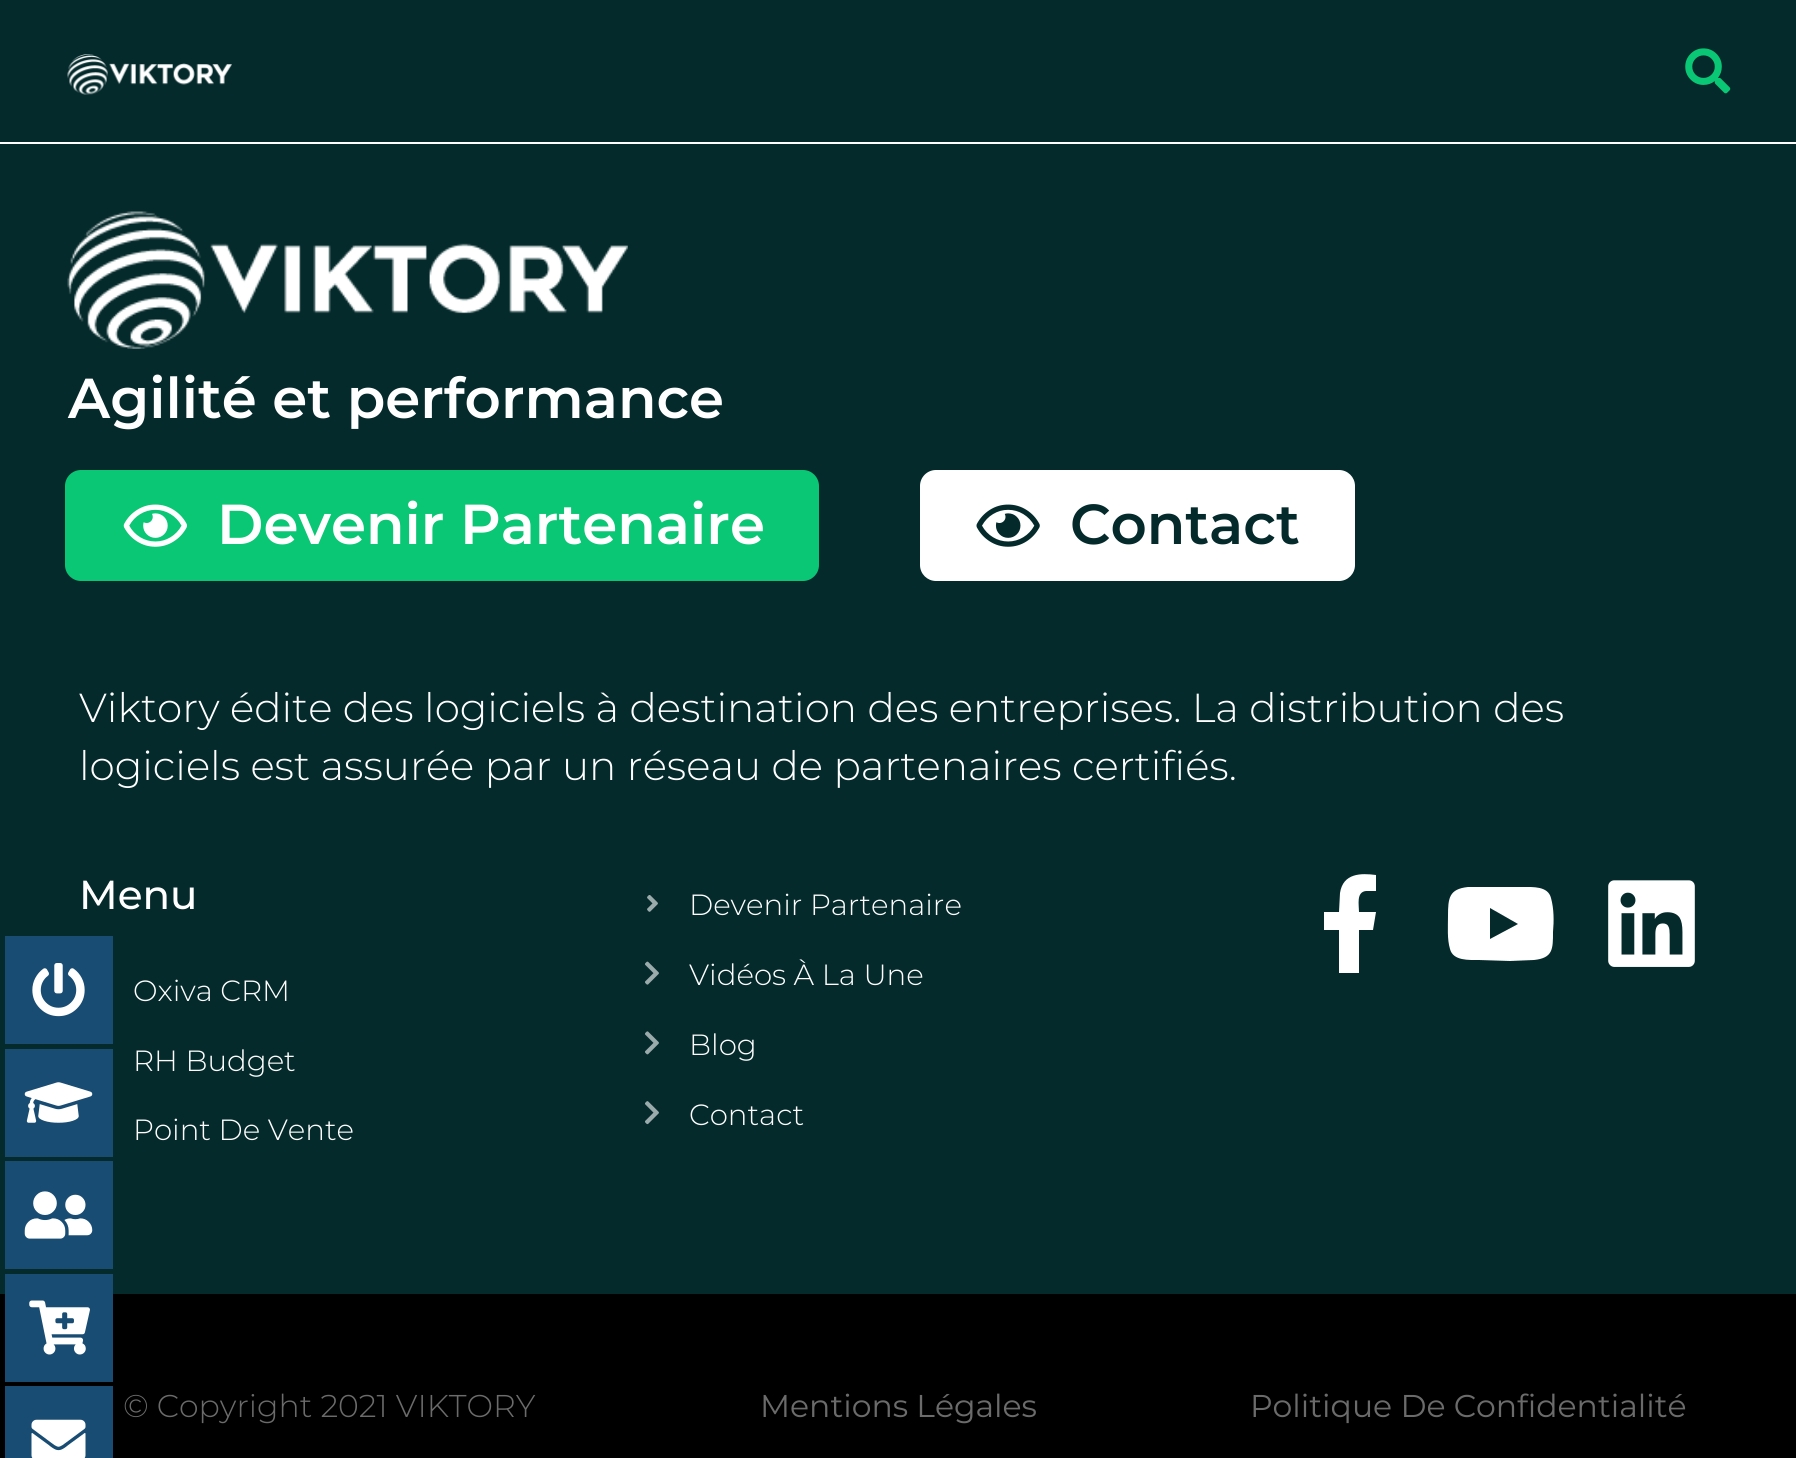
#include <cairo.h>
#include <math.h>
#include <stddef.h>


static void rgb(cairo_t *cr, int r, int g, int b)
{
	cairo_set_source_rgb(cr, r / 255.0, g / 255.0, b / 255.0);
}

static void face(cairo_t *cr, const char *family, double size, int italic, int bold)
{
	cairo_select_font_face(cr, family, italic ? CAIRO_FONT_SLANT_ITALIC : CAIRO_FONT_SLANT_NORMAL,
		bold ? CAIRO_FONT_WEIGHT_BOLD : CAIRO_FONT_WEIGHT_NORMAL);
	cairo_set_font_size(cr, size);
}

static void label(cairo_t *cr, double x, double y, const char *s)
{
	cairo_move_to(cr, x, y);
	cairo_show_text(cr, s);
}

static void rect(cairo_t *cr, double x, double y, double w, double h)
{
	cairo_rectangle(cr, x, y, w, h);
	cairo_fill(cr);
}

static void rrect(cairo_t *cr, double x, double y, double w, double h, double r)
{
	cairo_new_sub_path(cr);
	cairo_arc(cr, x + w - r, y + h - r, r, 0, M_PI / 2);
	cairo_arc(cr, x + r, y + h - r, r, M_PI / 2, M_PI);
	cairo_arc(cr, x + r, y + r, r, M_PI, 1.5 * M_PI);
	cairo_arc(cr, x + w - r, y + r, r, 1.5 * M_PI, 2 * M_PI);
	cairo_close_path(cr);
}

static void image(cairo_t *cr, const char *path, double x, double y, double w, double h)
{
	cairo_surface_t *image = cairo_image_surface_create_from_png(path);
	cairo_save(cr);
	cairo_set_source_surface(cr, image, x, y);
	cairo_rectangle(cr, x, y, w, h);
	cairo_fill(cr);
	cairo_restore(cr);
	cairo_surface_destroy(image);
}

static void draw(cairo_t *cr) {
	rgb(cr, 255, 255, 255);
	cairo_paint(cr);
	rgb(cr, 4, 42, 43);
	rect(cr, 0, 0, 1796, 142);
	image(cr, "image0.png", 67, 54, 165, 41);
	image(cr, "image1.png", 1685, 48, 46, 46);
	rect(cr, 0, 144, 1796, 1150);
	rgb(cr, 24, 76, 114);
	rect(cr, 5, 936, 108, 108);
	image(cr, "image2.png", 32, 963, 53, 54);
	rect(cr, 5, 1049, 108, 108);
	image(cr, "image3.png", 24, 1082, 69, 41);
	rect(cr, 5, 1161, 108, 108);
	image(cr, "image4.png", 24, 1191, 69, 48);
	rgb(cr, 0, 0, 0);
	rect(cr, 0, 1294, 1796, 164);
	rgb(cr, 24, 76, 114);
	rect(cr, 5, 1274, 108, 108);
	image(cr, "image5.png", 29, 1300, 61, 55);
	rect(cr, 5, 1386, 108, 72);
	image(cr, "image6.png", 31, 1419, 55, 39);
	image(cr, "image7.png", 67, 211, 561, 138);
	face(cr, "Montserrat SemiBold", 56.25, 0, 0);
	rgb(cr, 255, 255, 255);
	label(cr, 68, 418, "Agilité et performance");
	rgb(cr, 10, 199, 117);
	rrect(cr, 65, 470, 754, 111, 16);
	cairo_fill(cr);
	image(cr, "image8.png", 123, 504, 64, 43);
	rgb(cr, 255, 255, 255);
	label(cr, 217, 544, "Devenir Partenaire");
	rrect(cr, 920, 470, 435, 111, 16);
	cairo_fill(cr);
	image(cr, "image9.png", 976, 504, 64, 43);
	rgb(cr, 4, 42, 43);
	label(cr, 1070, 544, "Contact");
	face(cr, "Montserrat Light", 40.5, 0, 0);
	rgb(cr, 255, 255, 255);
	label(cr, 79, 722, "Viktory édite des logiciels à destination des entreprises. La distribution des");
	label(cr, 79, 780, "logiciels est assurée par un réseau de partenaires certifiés.");
	face(cr, "Montserrat Medium", 40.5, 0, 0);
	label(cr, 79, 909, "Menu");
	face(cr, "Montserrat Light", 29.25, 0, 0);
	label(cr, 133, 1001, "Oxiva CRM");
	label(cr, 133, 1071, "RH Budget");
	label(cr, 133, 1140, "Point De Vente");
	image(cr, "image10.png", 647, 895, 11, 17);
	label(cr, 689, 915, "Devenir Partenaire");
	image(cr, "image11.png", 645, 961, 14, 24);
	label(cr, 689, 985, "Vidéos À La Une");
	image(cr, "image12.png", 645, 1031, 14, 24);
	label(cr, 689, 1055, "Blog");
	image(cr, "image13.png", 645, 1101, 14, 24);
	label(cr, 689, 1125, "Contact");
	cairo_new_path(cr);
	cairo_move_to(cr, 1373, 930);
	cairo_line_to(cr, 1359, 930);
	cairo_line_to(cr, 1359, 973);
	cairo_line_to(cr, 1339, 973);
	cairo_line_to(cr, 1339, 930);
	cairo_line_to(cr, 1324, 930);
	cairo_line_to(cr, 1324, 912);
	cairo_line_to(cr, 1339, 912);
	cairo_line_to(cr, 1340, 893);
	cairo_curve_to(cr, 1343, 873, 1361, 873, 1376, 875);
	cairo_line_to(cr, 1376, 891);
	cairo_line_to(cr, 1366, 891);
	cairo_curve_to(cr, 1356, 892, 1359, 905, 1359, 912);
	cairo_line_to(cr, 1376, 912);
	cairo_close_path(cr);
	cairo_fill(cr);
	cairo_new_path(cr);
	cairo_move_to(cr, 1551, 898);
	cairo_curve_to(cr, 1554, 909, 1554, 921, 1553, 932);
	cairo_curve_to(cr, 1553, 949, 1553, 958, 1534, 960);
	cairo_line_to(cr, 1510, 961);
	cairo_line_to(cr, 1479, 960);
	cairo_curve_to(cr, 1469, 960, 1453, 961, 1450, 949);
	cairo_curve_to(cr, 1447, 939, 1448, 927, 1448, 916);
	cairo_curve_to(cr, 1448, 898, 1449, 889, 1468, 887);
	cairo_line_to(cr, 1492, 887);
	cairo_line_to(cr, 1523, 887);
	cairo_curve_to(cr, 1533, 887, 1548, 886, 1551, 898);
	cairo_close_path(cr);
	cairo_move_to(cr, 1490, 939);
	cairo_line_to(cr, 1518, 924);
	cairo_line_to(cr, 1490, 908);
	cairo_close_path(cr);
	cairo_fill(cr);
	image(cr, "image14.png", 1608, 880, 87, 87);
	face(cr, "Montserrat Light", 31.5, 0, 0);
	rgb(cr, 107, 107, 107);
	label(cr, 123, 1417, "© Copyright 2021 VIKTORY");
	face(cr, "Montserrat", 31.5, 0, 0);
	label(cr, 760, 1417, "Mentions Légales");
	label(cr, 1250, 1417, "Politique De Confidentialité");
}

int main(void) {
	cairo_surface_t *surface = cairo_image_surface_create(CAIRO_FORMAT_RGB24, 1796, 1458);
	cairo_t *cr = cairo_create(surface);
	cairo_font_options_t *options = cairo_font_options_create();
	cairo_font_options_set_hint_metrics(options, CAIRO_HINT_METRICS_OFF);
	cairo_font_options_set_hint_style(options, CAIRO_HINT_STYLE_NONE);
	cairo_set_font_options(cr, options);
	cairo_set_miter_limit(cr, 4);
	draw(cr);
	cairo_surface_write_to_png(surface, "render.png");
	cairo_font_options_destroy(options);
	cairo_destroy(cr);
	cairo_surface_destroy(surface);
	return 0;
}
